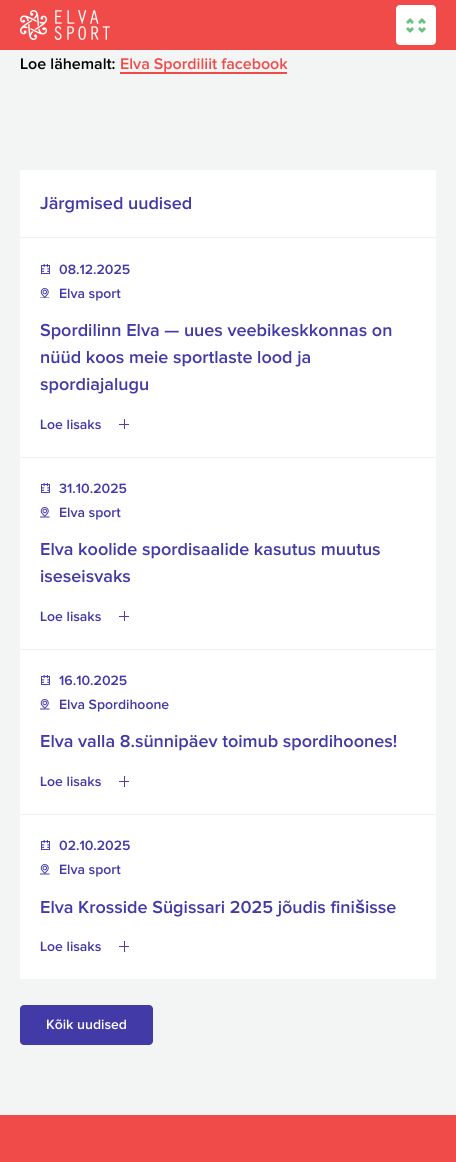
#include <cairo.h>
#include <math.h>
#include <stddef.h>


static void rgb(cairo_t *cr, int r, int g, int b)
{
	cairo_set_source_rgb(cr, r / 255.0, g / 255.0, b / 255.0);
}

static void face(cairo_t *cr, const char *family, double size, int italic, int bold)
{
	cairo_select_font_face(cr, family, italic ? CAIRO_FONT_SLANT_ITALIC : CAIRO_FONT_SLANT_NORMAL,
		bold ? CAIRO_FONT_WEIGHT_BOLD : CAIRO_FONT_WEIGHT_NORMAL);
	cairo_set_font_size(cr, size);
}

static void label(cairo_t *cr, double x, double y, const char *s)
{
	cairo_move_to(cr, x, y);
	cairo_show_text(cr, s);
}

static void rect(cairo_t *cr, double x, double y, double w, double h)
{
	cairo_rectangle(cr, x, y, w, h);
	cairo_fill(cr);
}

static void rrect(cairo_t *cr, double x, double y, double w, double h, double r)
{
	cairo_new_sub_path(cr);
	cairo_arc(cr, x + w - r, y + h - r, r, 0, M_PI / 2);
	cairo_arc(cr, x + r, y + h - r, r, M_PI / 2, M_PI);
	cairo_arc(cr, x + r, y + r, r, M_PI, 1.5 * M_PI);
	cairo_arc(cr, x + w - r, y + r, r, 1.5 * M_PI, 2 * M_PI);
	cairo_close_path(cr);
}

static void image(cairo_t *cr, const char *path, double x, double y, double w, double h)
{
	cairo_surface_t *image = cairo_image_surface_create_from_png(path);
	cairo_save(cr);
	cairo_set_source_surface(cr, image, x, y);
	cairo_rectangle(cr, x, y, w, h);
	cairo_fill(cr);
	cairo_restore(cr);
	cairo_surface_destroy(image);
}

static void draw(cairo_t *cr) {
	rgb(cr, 243, 244, 244);
	cairo_paint(cr);
	rgb(cr, 240, 75, 73);
	rect(cr, 0, 0, 456, 50);
	image(cr, "image0.png", 20, 10, 90, 30);
	rgb(cr, 255, 255, 255);
	rrect(cr, 396, 5, 40, 40, 4);
	cairo_fill(cr);
	image(cr, "image1.png", 406, 18, 20, 15);
	face(cr, "Proxima Nova SemiBold", 16, 0, 0);
	rgb(cr, 0, 0, 0);
	label(cr, 20, 69, "Loe lähemalt:");
	rgb(cr, 240, 75, 73);
	label(cr, 120, 69, "Elva Spordiliit facebook");
	rect(cr, 120, 72, 167, 2);
	rgb(cr, 255, 255, 255);
	rect(cr, 20, 170, 416, 67);
	rgb(cr, 239, 240, 241);
	rect(cr, 20, 237, 416, 1);
	face(cr, "Proxima Nova SemiBold", 18, 0, 0);
	rgb(cr, 66, 58, 167);
	label(cr, 40, 209, "Järgmised uudised");
	rgb(cr, 255, 255, 255);
	rect(cr, 20, 238, 416, 219);
	image(cr, "image2.png", 41, 264, 9, 10);
	face(cr, "Proxima Nova SemiBold", 14, 0, 0);
	rgb(cr, 66, 58, 167);
	label(cr, 59, 274, "08.12.2025");
	image(cr, "image3.png", 40, 288, 10, 10);
	label(cr, 59, 298, "Elva sport");
	face(cr, "Proxima Nova SemiBold", 18, 0, 0);
	label(cr, 40, 336, "Spordilinn Elva — uues veebikeskkonnas on");
	label(cr, 40, 363, "nüüd koos meie sportlaste lood ja");
	label(cr, 40, 390, "spordiajalugu");
	face(cr, "Proxima Nova SemiBold", 14, 0, 0);
	label(cr, 40, 429, "Loe lisaks");
	rgb(cr, 73, 65, 174);
	rect(cr, 124, 419, 1, 10);
	rect(cr, 119, 424, 10, 1);
	rgb(cr, 255, 255, 255);
	rect(cr, 20, 458, 416, 191);
	rgb(cr, 239, 240, 241);
	rect(cr, 20, 457, 416, 1);
	image(cr, "image2.png", 41, 483, 9, 10);
	rgb(cr, 66, 58, 167);
	label(cr, 59, 493, "31.10.2025");
	image(cr, "image4.png", 40, 507, 10, 11);
	label(cr, 59, 517, "Elva sport");
	face(cr, "Proxima Nova SemiBold", 18, 0, 0);
	label(cr, 40, 555, "Elva koolide spordisaalide kasutus muutus");
	label(cr, 40, 582, "iseseisvaks");
	face(cr, "Proxima Nova SemiBold", 14, 0, 0);
	label(cr, 40, 621, "Loe lisaks");
	rgb(cr, 73, 65, 174);
	rect(cr, 124, 611, 1, 10);
	rect(cr, 119, 616, 10, 1);
	rgb(cr, 255, 255, 255);
	rect(cr, 20, 650, 416, 164);
	rgb(cr, 239, 240, 241);
	rect(cr, 20, 649, 416, 1);
	image(cr, "image2.png", 41, 675, 9, 10);
	rgb(cr, 66, 58, 167);
	label(cr, 59, 685, "16.10.2025");
	image(cr, "image4.png", 40, 699, 10, 11);
	label(cr, 59, 709, "Elva Spordihoone");
	face(cr, "Proxima Nova SemiBold", 18, 0, 0);
	label(cr, 40, 747, "Elva valla 8.sünnipäev toimub spordihoones!");
	face(cr, "Proxima Nova SemiBold", 14, 0, 0);
	label(cr, 40, 786, "Loe lisaks");
	rgb(cr, 73, 65, 174);
	rect(cr, 124, 776, 1, 11);
	rect(cr, 119, 781, 10, 1);
	rgb(cr, 255, 255, 255);
	rect(cr, 20, 815, 416, 164);
	rgb(cr, 239, 240, 241);
	rect(cr, 20, 814, 416, 1);
	image(cr, "image2.png", 41, 840, 9, 10);
	rgb(cr, 66, 58, 167);
	label(cr, 59, 850, "02.10.2025");
	image(cr, "image4.png", 40, 864, 10, 11);
	label(cr, 59, 874, "Elva sport");
	face(cr, "Proxima Nova SemiBold", 18, 0, 0);
	label(cr, 40, 913, "Elva Krosside Sügissari 2025 jõudis fini");
	face(cr, "Liberation Sans", 18, 0, 1);
	label(cr, 355, 913, "š");
	face(cr, "Proxima Nova SemiBold", 18, 0, 0);
	label(cr, 365, 913, "isse");
	face(cr, "Proxima Nova SemiBold", 14, 0, 0);
	label(cr, 40, 951, "Loe lisaks");
	rgb(cr, 73, 65, 174);
	rect(cr, 124, 941, 1, 11);
	rect(cr, 119, 946, 10, 1);
	rgb(cr, 66, 58, 167);
	rrect(cr, 20, 1005, 133, 40, 4);
	cairo_fill(cr);
	rgb(cr, 255, 255, 255);
	label(cr, 46, 1029, "Kõik uudised");
	rgb(cr, 240, 75, 73);
	rect(cr, 0, 1115, 456, 47);
}

int main(void) {
	cairo_surface_t *surface = cairo_image_surface_create(CAIRO_FORMAT_RGB24, 456, 1162);
	cairo_t *cr = cairo_create(surface);
	cairo_font_options_t *options = cairo_font_options_create();
	cairo_font_options_set_hint_metrics(options, CAIRO_HINT_METRICS_OFF);
	cairo_font_options_set_hint_style(options, CAIRO_HINT_STYLE_NONE);
	cairo_set_font_options(cr, options);
	cairo_set_miter_limit(cr, 4);
	draw(cr);
	cairo_surface_write_to_png(surface, "render.png");
	cairo_font_options_destroy(options);
	cairo_destroy(cr);
	cairo_surface_destroy(surface);
	return 0;
}
